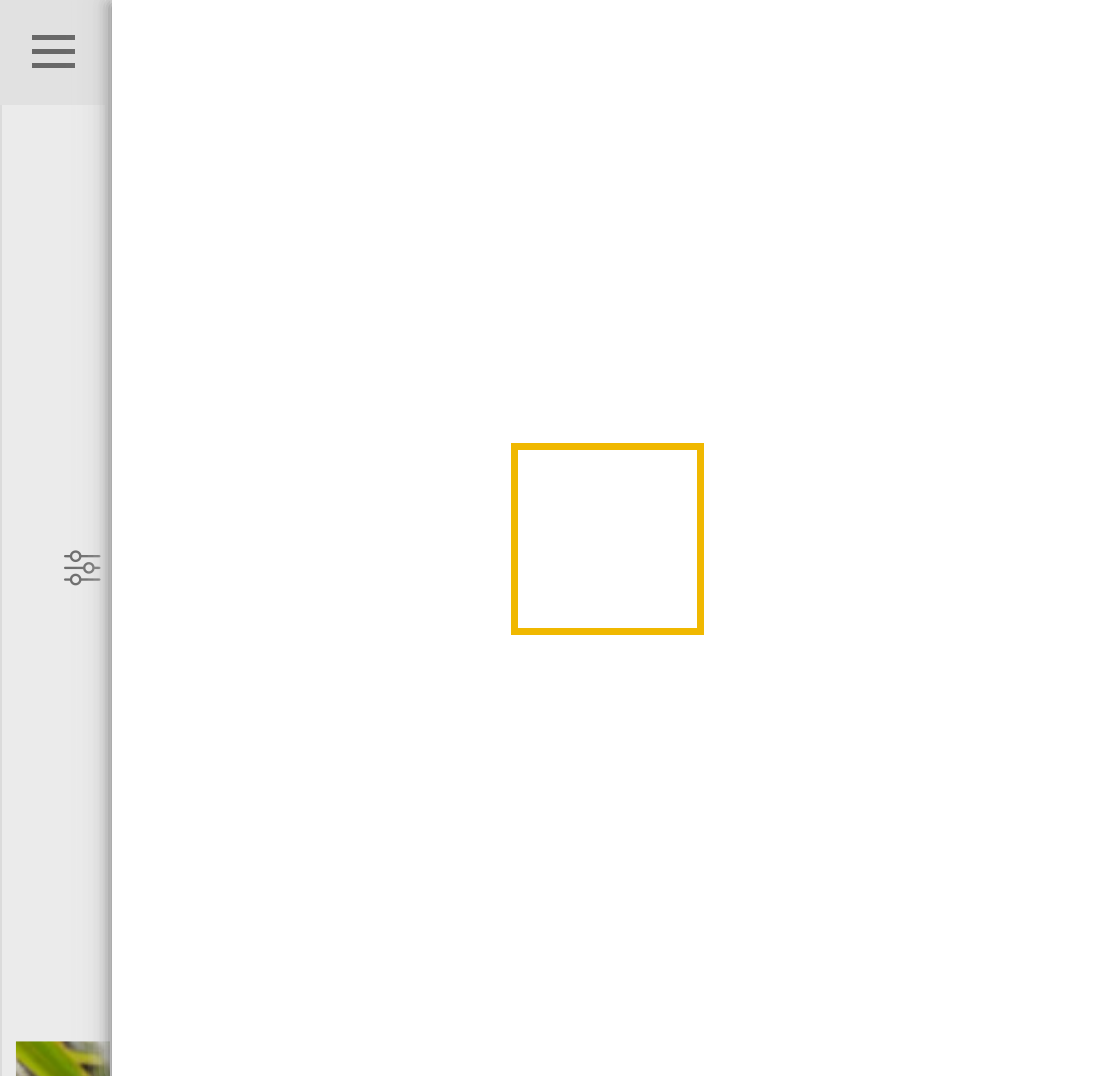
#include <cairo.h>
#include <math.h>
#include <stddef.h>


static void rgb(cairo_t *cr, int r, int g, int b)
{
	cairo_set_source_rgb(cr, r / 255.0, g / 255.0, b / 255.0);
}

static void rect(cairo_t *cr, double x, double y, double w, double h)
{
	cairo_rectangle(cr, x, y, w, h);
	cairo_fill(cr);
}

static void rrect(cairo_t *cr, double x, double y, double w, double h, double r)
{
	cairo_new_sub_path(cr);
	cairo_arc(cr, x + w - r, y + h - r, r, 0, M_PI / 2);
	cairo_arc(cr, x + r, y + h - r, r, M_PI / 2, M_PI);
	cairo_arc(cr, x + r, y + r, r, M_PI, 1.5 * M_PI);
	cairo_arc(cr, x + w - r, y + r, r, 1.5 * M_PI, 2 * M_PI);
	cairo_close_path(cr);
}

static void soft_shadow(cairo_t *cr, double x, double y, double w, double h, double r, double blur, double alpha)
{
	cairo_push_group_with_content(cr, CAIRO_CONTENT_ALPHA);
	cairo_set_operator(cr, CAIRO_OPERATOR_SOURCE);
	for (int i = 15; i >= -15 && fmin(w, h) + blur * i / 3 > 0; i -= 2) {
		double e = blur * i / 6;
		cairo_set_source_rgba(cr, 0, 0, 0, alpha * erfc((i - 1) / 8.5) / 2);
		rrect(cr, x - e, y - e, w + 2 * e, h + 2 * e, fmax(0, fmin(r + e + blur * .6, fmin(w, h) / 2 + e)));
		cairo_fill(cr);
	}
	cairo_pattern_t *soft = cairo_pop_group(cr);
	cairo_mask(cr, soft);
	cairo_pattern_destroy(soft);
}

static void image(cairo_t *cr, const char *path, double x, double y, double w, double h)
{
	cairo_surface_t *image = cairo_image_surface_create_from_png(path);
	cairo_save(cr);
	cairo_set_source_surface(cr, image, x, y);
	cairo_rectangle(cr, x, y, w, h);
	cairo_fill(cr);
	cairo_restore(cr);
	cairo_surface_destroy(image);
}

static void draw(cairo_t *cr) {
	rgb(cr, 235, 235, 235);
	cairo_paint(cr);
	rgb(cr, 225, 225, 225);
	rect(cr, 0, 0, 105, 105);
	rgb(cr, 104, 104, 104);
	rect(cr, 32, 35, 43, 5);
	rect(cr, 32, 49, 43, 5);
	rect(cr, 32, 63, 43, 5);
	rgb(cr, 219, 219, 219);
	rect(cr, 0, 105, 2, 971);
	image(cr, "image0.png", 64, 550, 37, 36);
	image(cr, "image1.png", 15, 1041, 95, 35);
	rgb(cr, 204, 204, 204);
	soft_shadow(cr, 107, -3, 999, 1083, 0, 16.5, 1);
	rgb(cr, 229, 229, 229);
	rect(cr, 110, 0, 2, 1076);
	rgb(cr, 0, 0, 0);
	soft_shadow(cr, 112, 5, 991, 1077, 0, 8, 0.5);
	rgb(cr, 255, 255, 255);
	rect(cr, 112, 0, 989, 1076);
	cairo_rectangle(cr, 514.5, 446.5, 186, 185);
	rgb(cr, 240, 184, 0);
	cairo_set_line_width(cr, 7);
	cairo_stroke(cr);
}

int main(void) {
	cairo_surface_t *surface = cairo_image_surface_create(CAIRO_FORMAT_RGB24, 1101, 1076);
	cairo_t *cr = cairo_create(surface);
	cairo_font_options_t *options = cairo_font_options_create();
	cairo_font_options_set_hint_metrics(options, CAIRO_HINT_METRICS_OFF);
	cairo_font_options_set_hint_style(options, CAIRO_HINT_STYLE_NONE);
	cairo_set_font_options(cr, options);
	cairo_set_miter_limit(cr, 4);
	draw(cr);
	cairo_surface_write_to_png(surface, "render.png");
	cairo_font_options_destroy(options);
	cairo_destroy(cr);
	cairo_surface_destroy(surface);
	return 0;
}
